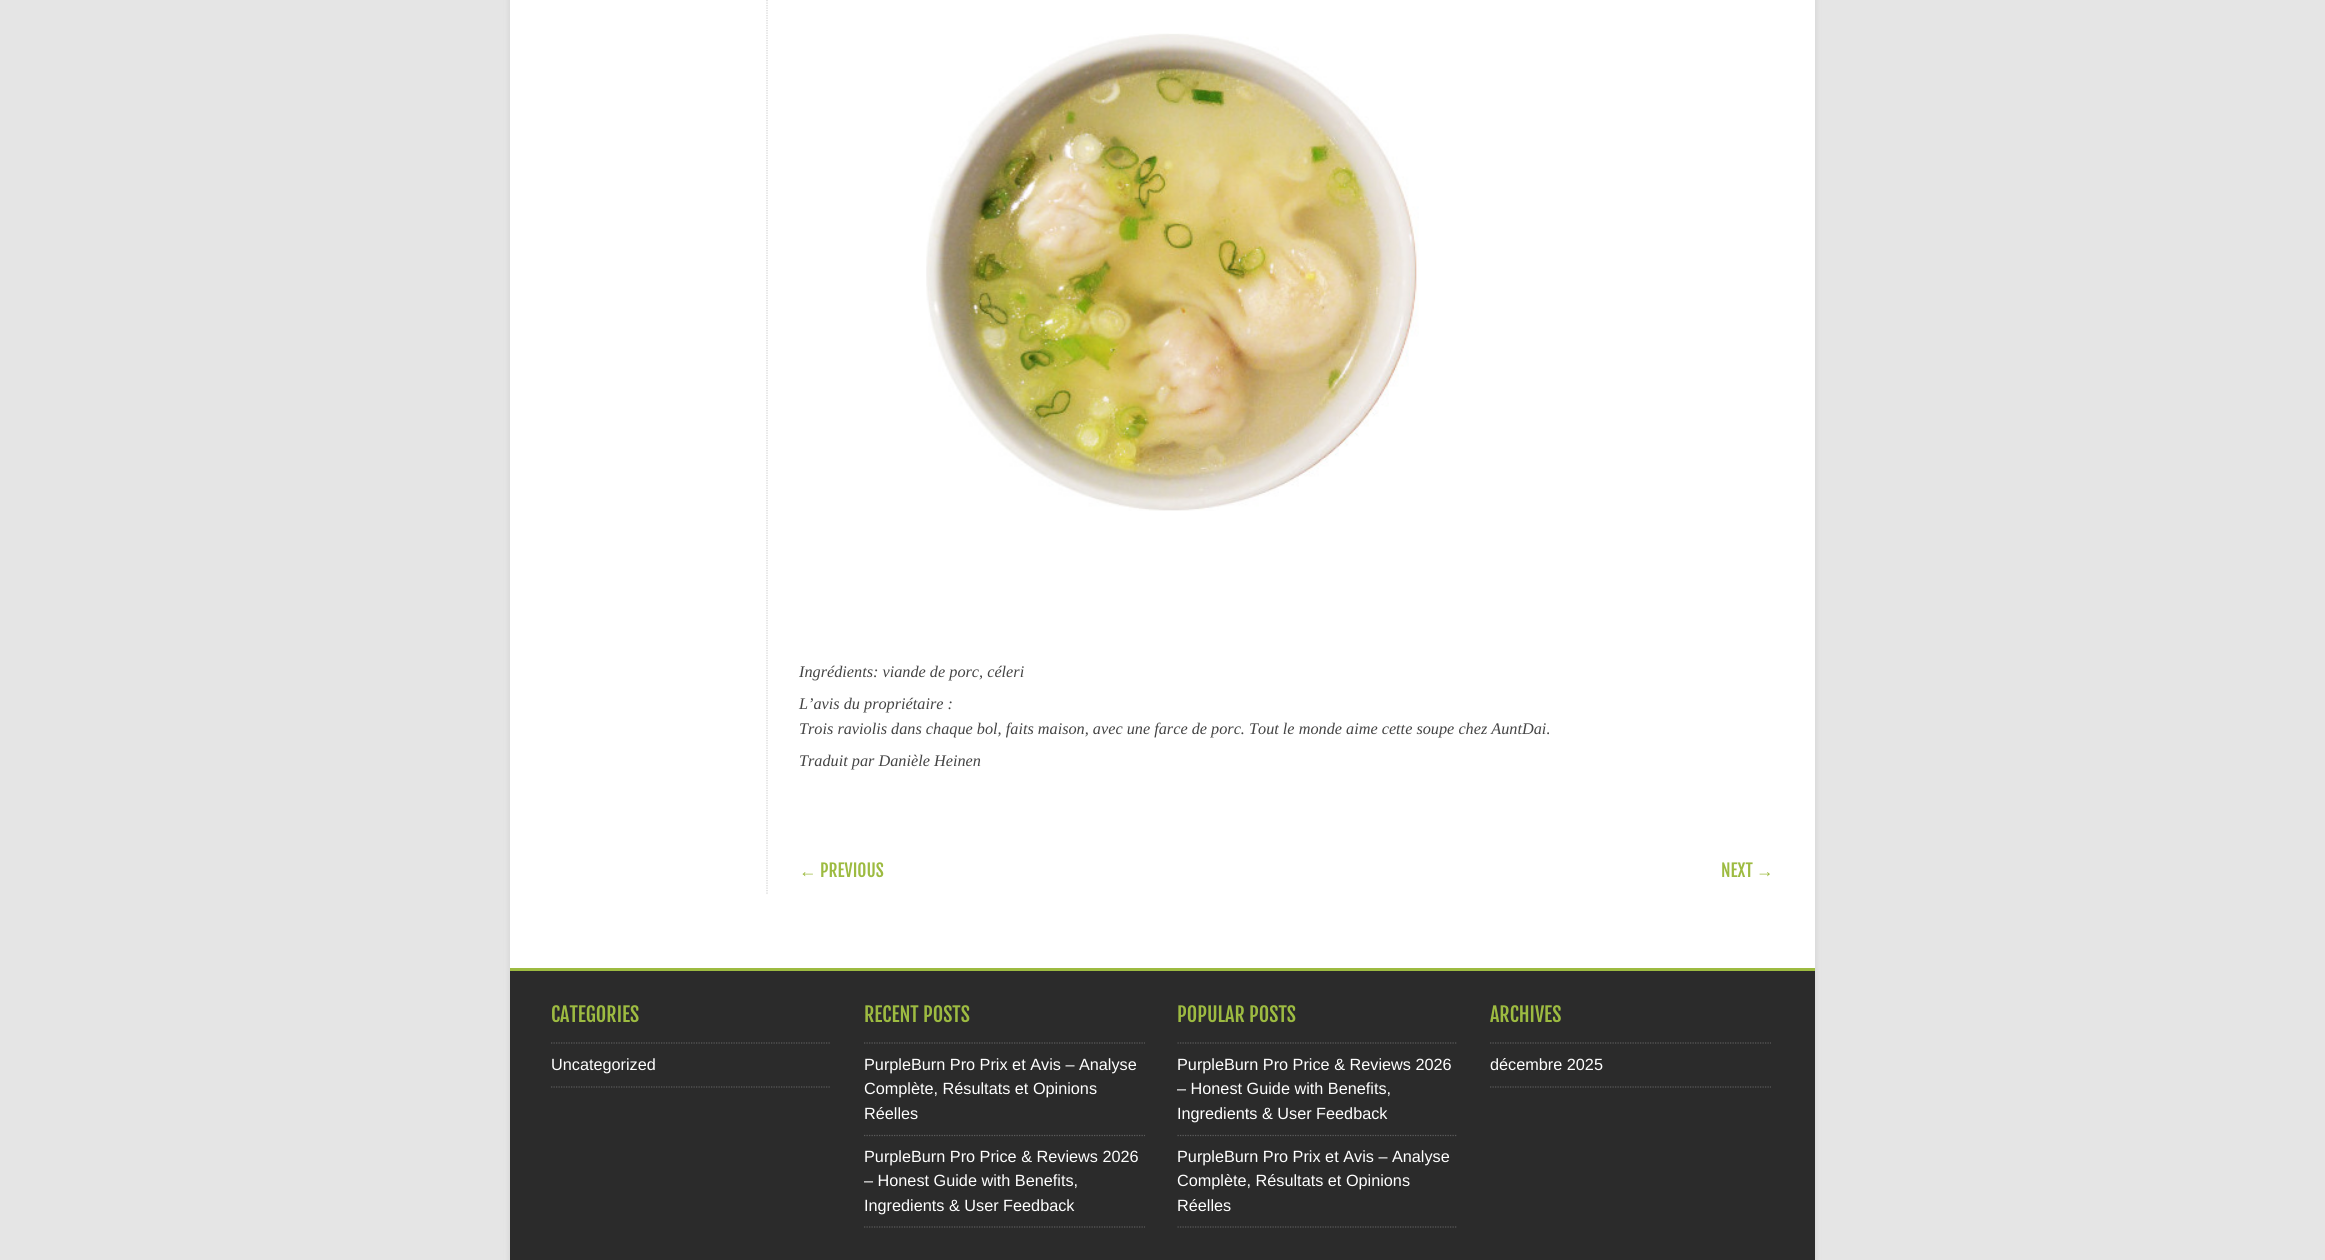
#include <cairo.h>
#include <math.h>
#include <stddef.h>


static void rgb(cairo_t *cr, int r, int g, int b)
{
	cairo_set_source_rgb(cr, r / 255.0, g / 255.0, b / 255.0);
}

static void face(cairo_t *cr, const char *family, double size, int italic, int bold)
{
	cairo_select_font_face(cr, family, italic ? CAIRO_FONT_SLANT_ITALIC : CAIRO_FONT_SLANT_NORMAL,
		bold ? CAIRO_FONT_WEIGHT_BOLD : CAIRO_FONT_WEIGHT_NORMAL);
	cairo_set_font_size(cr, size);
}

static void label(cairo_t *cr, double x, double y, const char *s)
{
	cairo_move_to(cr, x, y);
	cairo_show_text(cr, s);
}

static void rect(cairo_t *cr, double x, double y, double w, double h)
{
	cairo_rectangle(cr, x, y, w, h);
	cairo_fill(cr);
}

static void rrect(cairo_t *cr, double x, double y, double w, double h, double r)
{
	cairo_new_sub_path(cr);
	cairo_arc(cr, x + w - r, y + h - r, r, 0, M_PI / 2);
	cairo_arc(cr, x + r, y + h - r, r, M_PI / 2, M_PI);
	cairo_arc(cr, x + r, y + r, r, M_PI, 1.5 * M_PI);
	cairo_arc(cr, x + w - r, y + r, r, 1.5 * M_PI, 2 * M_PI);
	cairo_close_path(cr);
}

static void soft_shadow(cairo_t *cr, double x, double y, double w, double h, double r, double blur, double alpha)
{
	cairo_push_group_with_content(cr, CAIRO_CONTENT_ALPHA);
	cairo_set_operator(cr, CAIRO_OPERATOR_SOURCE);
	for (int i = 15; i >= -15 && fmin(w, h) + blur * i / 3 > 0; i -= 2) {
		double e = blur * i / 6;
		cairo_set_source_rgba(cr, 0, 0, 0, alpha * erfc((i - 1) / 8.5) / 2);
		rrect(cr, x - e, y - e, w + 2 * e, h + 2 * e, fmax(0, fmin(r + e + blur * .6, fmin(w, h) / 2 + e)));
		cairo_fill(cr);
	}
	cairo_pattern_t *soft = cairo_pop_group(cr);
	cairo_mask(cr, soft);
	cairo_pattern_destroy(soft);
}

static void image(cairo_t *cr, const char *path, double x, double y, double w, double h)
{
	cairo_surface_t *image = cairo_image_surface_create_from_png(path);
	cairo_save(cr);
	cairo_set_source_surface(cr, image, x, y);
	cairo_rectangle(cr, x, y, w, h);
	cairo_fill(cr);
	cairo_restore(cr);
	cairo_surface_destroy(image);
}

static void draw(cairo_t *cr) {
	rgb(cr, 229, 229, 229);
	cairo_paint(cr);
	rgb(cr, 208, 208, 208);
	soft_shadow(cr, 510, -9, 1305, 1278, 0, 3, 1);
	rgb(cr, 255, 255, 255);
	rect(cr, 510, 0, 1305, 968);
	cairo_new_path(cr);
	cairo_move_to(cr, 767, -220);
	cairo_line_to(cr, 767, 895);
	rgb(cr, 210, 210, 210);
	cairo_set_line_width(cr, 1.2);
	cairo_set_dash(cr, (double[]){1.25, 1.25}, 2, 0);
	cairo_stroke(cr);
	image(cr, "image0.png", 926, 33, 493, 478);
	face(cr, "Liberation Serif", 16.25, 1, 0);
	rgb(cr, 68, 68, 68);
	label(cr, 799, 677, "Ingrédients: viande de porc, céleri");
	label(cr, 799, 709, "L’avis du propriétaire :");
	label(cr, 799, 734, "Trois raviolis dans chaque bol, faits maison, avec une farce de porc. Tout le monde aime cette soupe chez AuntDai.");
	label(cr, 799, 766, "Traduit par Danièle Heinen");
	face(cr, "Liberation Sans", 17.5, 0, 0);
	rgb(cr, 157, 187, 65);
	label(cr, 799, 877, "←");
	face(cr, "Fjalla One", 17.5, 0, 0);
	label(cr, 820, 877, "PREVIOUS");
	label(cr, 1721, 877, "NEXT");
	face(cr, "Liberation Sans", 17.5, 0, 0);
	label(cr, 1756, 877, "→");
	rgb(cr, 43, 43, 43);
	rect(cr, 510, 971, 1305, 289);
	rgb(cr, 157, 187, 65);
	rect(cr, 510, 968, 1305, 3);
	face(cr, "Fjalla One", 20, 0, 0);
	label(cr, 551, 1022, "CATEGORIES");
	cairo_new_path(cr);
	cairo_move_to(cr, 551, 1043);
	cairo_line_to(cr, 831, 1043);
	rgb(cr, 91, 91, 91);
	cairo_stroke(cr);
	cairo_new_path(cr);
	cairo_move_to(cr, 551, 1087);
	cairo_line_to(cr, 831, 1087);
	cairo_stroke(cr);
	face(cr, "Liberation Sans", 16.25, 0, 0);
	rgb(cr, 255, 255, 255);
	label(cr, 551, 1070, "Uncategorized");
	face(cr, "Fjalla One", 20, 0, 0);
	rgb(cr, 157, 187, 65);
	label(cr, 864, 1022, "RECENT POSTS");
	cairo_new_path(cr);
	cairo_move_to(cr, 864, 1043);
	cairo_line_to(cr, 1145, 1043);
	rgb(cr, 91, 91, 91);
	cairo_stroke(cr);
	face(cr, "Liberation Sans", 16.25, 0, 0);
	rgb(cr, 255, 255, 255);
	label(cr, 864, 1070, "PurpleBurn Pro Prix et Avis – Analyse");
	label(cr, 864, 1094, "Complète, Résultats et Opinions");
	label(cr, 864, 1119, "Réelles");
	cairo_new_path(cr);
	cairo_move_to(cr, 864, 1135.5);
	cairo_line_to(cr, 1145, 1135.5);
	rgb(cr, 91, 91, 91);
	cairo_stroke(cr);
	cairo_new_path(cr);
	cairo_move_to(cr, 864, 1227);
	cairo_line_to(cr, 1145, 1227);
	cairo_stroke(cr);
	rgb(cr, 255, 255, 255);
	label(cr, 864, 1162, "PurpleBurn Pro Price & Reviews 2026");
	label(cr, 864, 1186, "– Honest Guide with Benefits,");
	label(cr, 864, 1211, "Ingredients & User Feedback");
	face(cr, "Fjalla One", 20, 0, 0);
	rgb(cr, 157, 187, 65);
	label(cr, 1177, 1022, "POPULAR POSTS");
	cairo_new_path(cr);
	cairo_move_to(cr, 1177.5, 1043);
	cairo_line_to(cr, 1457.5, 1043);
	rgb(cr, 91, 91, 91);
	cairo_stroke(cr);
	face(cr, "Liberation Sans", 16.25, 0, 0);
	rgb(cr, 255, 255, 255);
	label(cr, 1177, 1070, "PurpleBurn Pro Price & Reviews 2026");
	label(cr, 1177, 1094, "– Honest Guide with Benefits,");
	label(cr, 1177, 1119, "Ingredients & User Feedback");
	cairo_new_path(cr);
	cairo_move_to(cr, 1177.5, 1135.5);
	cairo_line_to(cr, 1457.5, 1135.5);
	rgb(cr, 91, 91, 91);
	cairo_stroke(cr);
	cairo_new_path(cr);
	cairo_move_to(cr, 1177.5, 1227);
	cairo_line_to(cr, 1457.5, 1227);
	cairo_stroke(cr);
	rgb(cr, 255, 255, 255);
	label(cr, 1177, 1162, "PurpleBurn Pro Prix et Avis – Analyse");
	label(cr, 1177, 1186, "Complète, Résultats et Opinions");
	label(cr, 1177, 1211, "Réelles");
	face(cr, "Fjalla One", 20, 0, 0);
	rgb(cr, 157, 187, 65);
	label(cr, 1490, 1022, "ARCHIVES");
	cairo_new_path(cr);
	cairo_move_to(cr, 1490, 1043);
	cairo_line_to(cr, 1771, 1043);
	rgb(cr, 91, 91, 91);
	cairo_stroke(cr);
	cairo_new_path(cr);
	cairo_move_to(cr, 1490, 1087);
	cairo_line_to(cr, 1771, 1087);
	cairo_stroke(cr);
	face(cr, "Liberation Sans", 16.25, 0, 0);
	rgb(cr, 255, 255, 255);
	label(cr, 1490, 1070, "décembre 2025");
}

int main(void) {
	cairo_surface_t *surface = cairo_image_surface_create(CAIRO_FORMAT_RGB24, 2325, 1260);
	cairo_t *cr = cairo_create(surface);
	cairo_font_options_t *options = cairo_font_options_create();
	cairo_font_options_set_hint_metrics(options, CAIRO_HINT_METRICS_OFF);
	cairo_font_options_set_hint_style(options, CAIRO_HINT_STYLE_NONE);
	cairo_set_font_options(cr, options);
	cairo_set_miter_limit(cr, 4);
	draw(cr);
	cairo_surface_write_to_png(surface, "render.png");
	cairo_font_options_destroy(options);
	cairo_destroy(cr);
	cairo_surface_destroy(surface);
	return 0;
}
